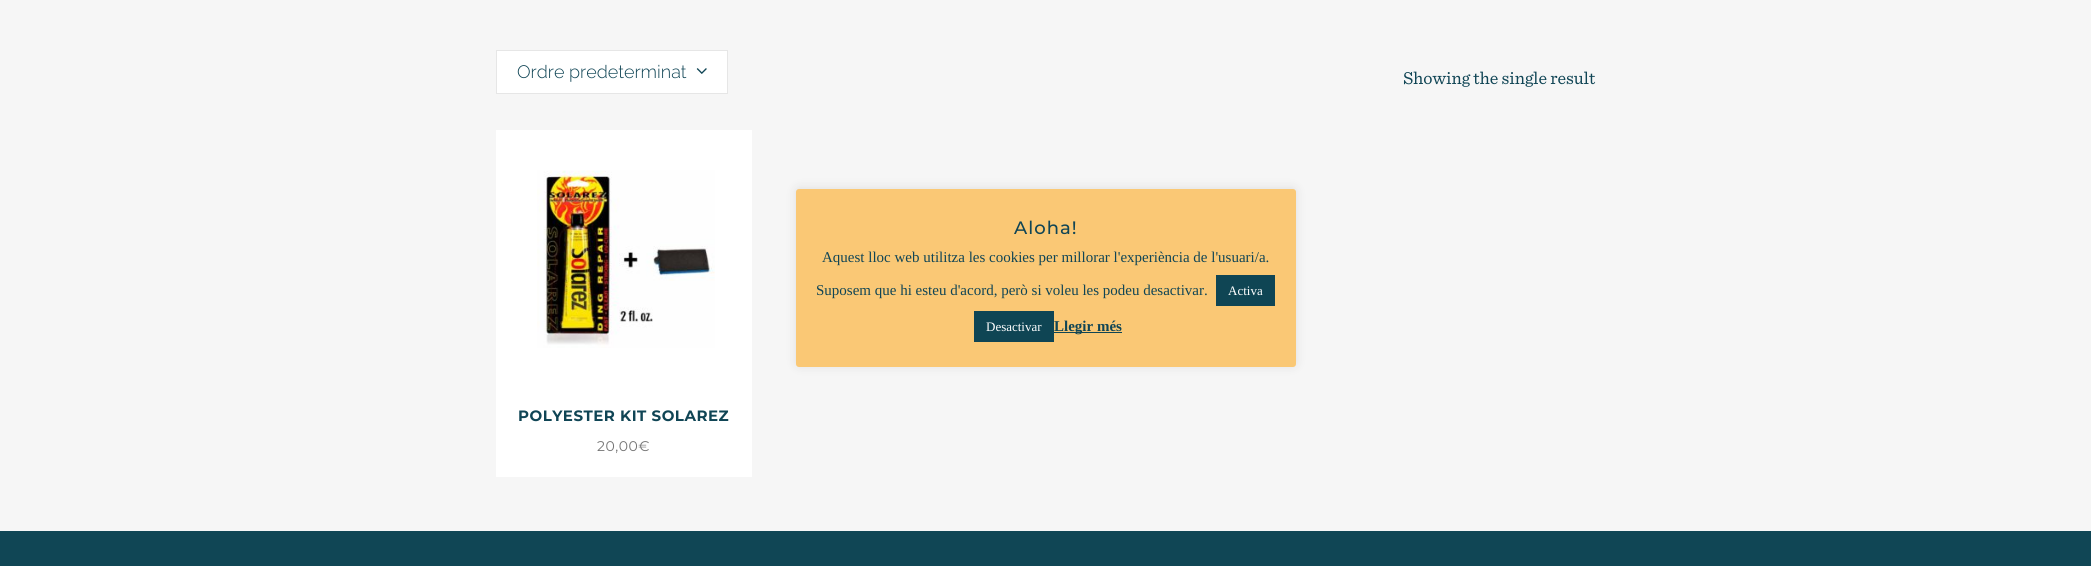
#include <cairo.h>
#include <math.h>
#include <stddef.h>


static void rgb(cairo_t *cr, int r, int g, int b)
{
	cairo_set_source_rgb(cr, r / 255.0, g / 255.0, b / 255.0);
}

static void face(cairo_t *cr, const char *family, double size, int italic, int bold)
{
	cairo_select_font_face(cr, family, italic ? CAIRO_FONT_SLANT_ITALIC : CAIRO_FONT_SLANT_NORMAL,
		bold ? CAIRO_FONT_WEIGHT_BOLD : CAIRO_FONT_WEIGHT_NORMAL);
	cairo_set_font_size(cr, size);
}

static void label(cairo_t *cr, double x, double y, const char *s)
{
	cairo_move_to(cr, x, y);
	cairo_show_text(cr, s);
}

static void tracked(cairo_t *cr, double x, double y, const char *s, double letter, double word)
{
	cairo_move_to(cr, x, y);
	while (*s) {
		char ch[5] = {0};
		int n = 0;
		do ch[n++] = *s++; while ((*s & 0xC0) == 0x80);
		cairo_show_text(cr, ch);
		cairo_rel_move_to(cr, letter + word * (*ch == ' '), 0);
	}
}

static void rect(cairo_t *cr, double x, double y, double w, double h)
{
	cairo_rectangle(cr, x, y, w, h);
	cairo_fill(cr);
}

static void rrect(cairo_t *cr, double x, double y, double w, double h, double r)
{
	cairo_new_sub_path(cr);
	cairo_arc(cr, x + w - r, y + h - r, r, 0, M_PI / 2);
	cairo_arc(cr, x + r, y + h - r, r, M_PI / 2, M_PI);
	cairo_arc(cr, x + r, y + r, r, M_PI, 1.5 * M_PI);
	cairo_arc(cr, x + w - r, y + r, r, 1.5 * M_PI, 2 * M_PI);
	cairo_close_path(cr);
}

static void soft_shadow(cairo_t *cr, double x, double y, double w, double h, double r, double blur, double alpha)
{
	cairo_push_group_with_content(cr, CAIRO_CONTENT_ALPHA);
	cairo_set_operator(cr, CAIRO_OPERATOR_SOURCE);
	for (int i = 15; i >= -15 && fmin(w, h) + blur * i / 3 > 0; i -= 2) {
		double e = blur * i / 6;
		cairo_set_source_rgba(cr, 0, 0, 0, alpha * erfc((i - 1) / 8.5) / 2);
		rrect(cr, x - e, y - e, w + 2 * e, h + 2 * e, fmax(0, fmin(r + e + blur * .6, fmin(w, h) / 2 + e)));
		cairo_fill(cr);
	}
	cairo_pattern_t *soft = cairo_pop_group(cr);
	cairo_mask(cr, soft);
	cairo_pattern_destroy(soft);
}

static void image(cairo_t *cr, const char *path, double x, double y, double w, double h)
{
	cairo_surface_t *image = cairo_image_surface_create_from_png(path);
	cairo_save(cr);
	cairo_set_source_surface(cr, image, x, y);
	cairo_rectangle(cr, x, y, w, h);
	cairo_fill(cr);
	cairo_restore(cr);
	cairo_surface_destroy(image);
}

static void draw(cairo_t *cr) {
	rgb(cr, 246, 246, 246);
	cairo_paint(cr);
	rgb(cr, 255, 255, 255);
	cairo_rectangle(cr, 496.5, 50.5, 231, 43);
	cairo_fill_preserve(cr);
	rgb(cr, 230, 230, 230);
	cairo_set_line_width(cr, 1);
	cairo_stroke(cr);
	face(cr, "Raleway Light", 18, 0, 0);
	rgb(cr, 16, 69, 85);
	label(cr, 517, 78, "Ordre predeterminat");
	image(cr, "image0.png", 696, 68, 11, 6);
	face(cr, "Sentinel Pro", 18, 0, 0);
	label(cr, 1403, 84, "Showing the single result");
	rgb(cr, 255, 255, 255);
	rect(cr, 496, 130, 256, 347);
	image(cr, "image1.png", 537, 170, 178, 178);
	face(cr, "Montserrat", 15, 0, 1);
	rgb(cr, 16, 69, 85);
	tracked(cr, 518, 421, "POLYESTER KIT SOLAREZ", 0.5, 0);
	face(cr, "Montserrat", 14, 0, 0);
	rgb(cr, 117, 117, 117);
	tracked(cr, 597, 451, "20,00€", 0.5, 0);
	rgb(cr, 16, 70, 85);
	rect(cr, 0, 531, 2091, 35);
	rgb(cr, 172, 171, 171);
	soft_shadow(cr, 796, 188, 500, 178, 3, 5, 0.3);
	rgb(cr, 250, 200, 117);
	rrect(cr, 796, 189, 500, 178, 3);
	cairo_fill(cr);
	face(cr, "Montserrat Medium", 18, 0, 0);
	rgb(cr, 16, 69, 85);
	tracked(cr, 1014, 234, "Aloha!", 1, 0);
	face(cr, "Liberation Serif", 15, 0, 0);
	label(cr, 822, 262, "Aquest lloc web utilitza les cookies per millorar l'experiència de l'usuari/a.");
	label(cr, 816, 295, "Suposem que hi esteu d'acord, però si voleu les podeu desactivar.");
	rgb(cr, 15, 69, 84);
	rect(cr, 1216, 275, 59, 31);
	face(cr, "Liberation Serif", 13, 0, 0);
	rgb(cr, 255, 255, 255);
	label(cr, 1228, 295, "Activa");
	rgb(cr, 15, 69, 84);
	rect(cr, 974, 311, 80, 31);
	rgb(cr, 255, 255, 255);
	label(cr, 986, 331, "Desactivar");
	rgb(cr, 15, 69, 84);
	rect(cr, 1054, 332, 68, 1);
	face(cr, "Liberation Serif", 15, 0, 1);
	rgb(cr, 16, 69, 85);
	label(cr, 1054, 331, "Llegir més");
}

int main(void) {
	cairo_surface_t *surface = cairo_image_surface_create(CAIRO_FORMAT_RGB24, 2091, 566);
	cairo_t *cr = cairo_create(surface);
	cairo_font_options_t *options = cairo_font_options_create();
	cairo_font_options_set_hint_metrics(options, CAIRO_HINT_METRICS_OFF);
	cairo_font_options_set_hint_style(options, CAIRO_HINT_STYLE_NONE);
	cairo_set_font_options(cr, options);
	cairo_set_miter_limit(cr, 4);
	draw(cr);
	cairo_surface_write_to_png(surface, "render.png");
	cairo_font_options_destroy(options);
	cairo_destroy(cr);
	cairo_surface_destroy(surface);
	return 0;
}
